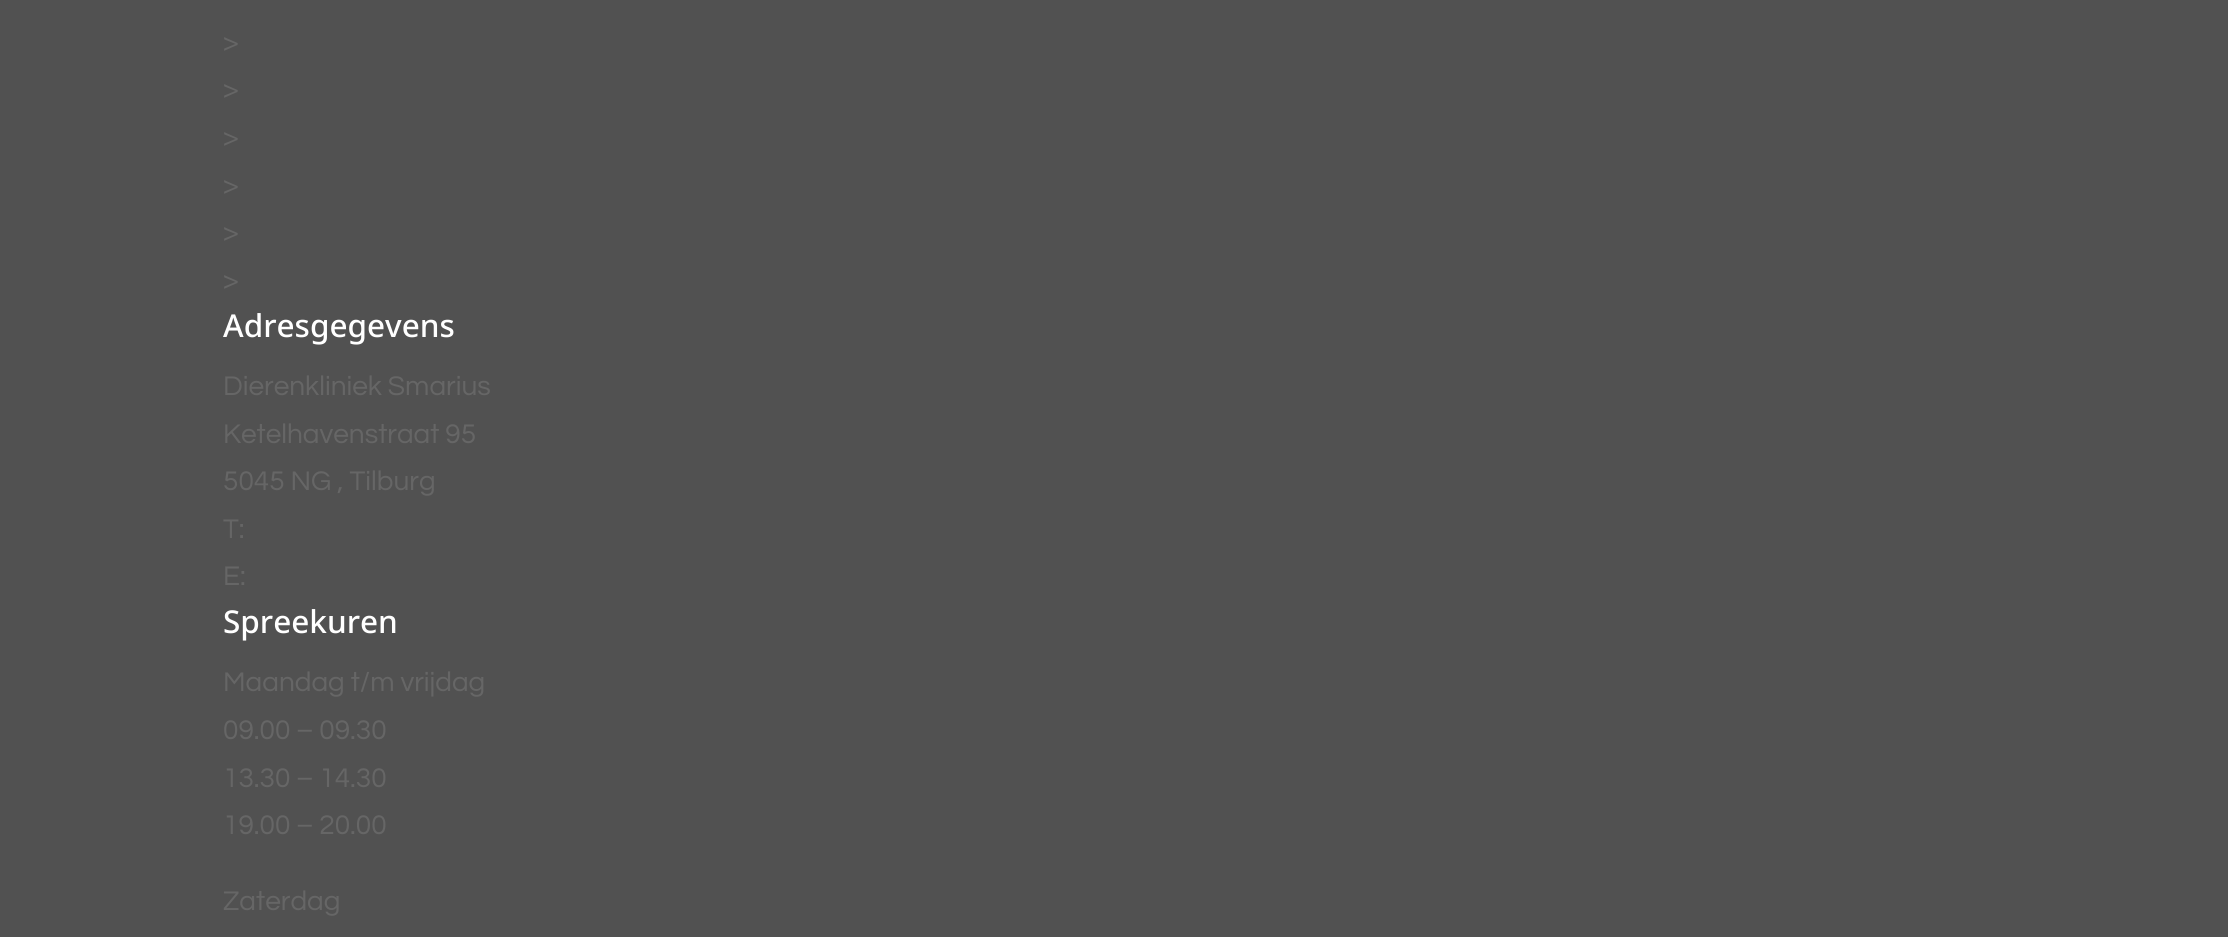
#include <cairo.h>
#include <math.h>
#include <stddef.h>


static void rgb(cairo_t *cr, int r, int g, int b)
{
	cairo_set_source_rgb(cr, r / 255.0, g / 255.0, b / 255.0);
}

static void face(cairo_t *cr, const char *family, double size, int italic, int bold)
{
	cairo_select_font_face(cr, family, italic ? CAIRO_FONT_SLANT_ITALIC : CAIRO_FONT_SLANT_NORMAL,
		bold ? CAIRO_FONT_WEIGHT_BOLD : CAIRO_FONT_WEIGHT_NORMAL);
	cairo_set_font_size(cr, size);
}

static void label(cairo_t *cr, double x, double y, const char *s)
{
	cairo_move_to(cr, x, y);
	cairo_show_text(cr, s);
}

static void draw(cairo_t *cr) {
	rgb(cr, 81, 81, 81);
	cairo_paint(cr);
	face(cr, "Questrial", 28, 0, 0);
	rgb(cr, 102, 102, 102);
	label(cr, 223, 51, ">");
	label(cr, 223, 98, ">");
	label(cr, 223, 146, ">");
	label(cr, 223, 194, ">");
	label(cr, 223, 241, ">");
	label(cr, 223, 289, ">");
	face(cr, "Noto Sans Medium", 31.5, 0, 0);
	rgb(cr, 255, 255, 255);
	label(cr, 223, 337, "Adresgegevens");
	face(cr, "Questrial", 28, 0, 0);
	rgb(cr, 102, 102, 102);
	label(cr, 223, 395, "Dierenkliniek Smarius");
	label(cr, 223, 443, "Ketelhavenstraat 95");
	label(cr, 223, 490, "5045 NG , Tilburg");
	label(cr, 223, 538, "T:");
	label(cr, 223, 585, "E:");
	face(cr, "Noto Sans Medium", 31.5, 0, 0);
	rgb(cr, 255, 255, 255);
	label(cr, 223, 633, "Spreekuren");
	face(cr, "Questrial", 28, 0, 0);
	rgb(cr, 102, 102, 102);
	label(cr, 223, 691, "Maandag t/m vrijdag");
	label(cr, 223, 739, "09.00 – 09.30");
	label(cr, 223, 787, "13.30 – 14.30");
	label(cr, 223, 834, "19.00 – 20.00");
	label(cr, 223, 910, "Zaterdag");
}

int main(void) {
	cairo_surface_t *surface = cairo_image_surface_create(CAIRO_FORMAT_RGB24, 2228, 937);
	cairo_t *cr = cairo_create(surface);
	cairo_font_options_t *options = cairo_font_options_create();
	cairo_font_options_set_hint_metrics(options, CAIRO_HINT_METRICS_OFF);
	cairo_font_options_set_hint_style(options, CAIRO_HINT_STYLE_NONE);
	cairo_set_font_options(cr, options);
	cairo_set_miter_limit(cr, 4);
	draw(cr);
	cairo_surface_write_to_png(surface, "render.png");
	cairo_font_options_destroy(options);
	cairo_destroy(cr);
	cairo_surface_destroy(surface);
	return 0;
}
